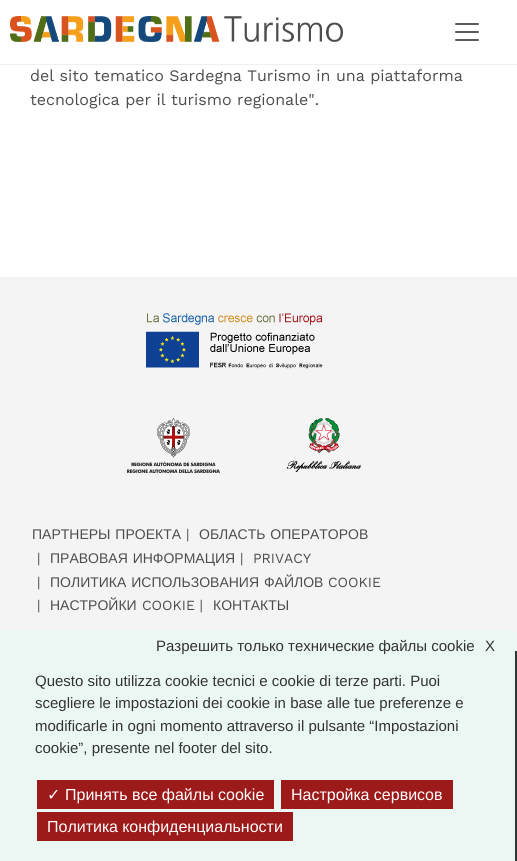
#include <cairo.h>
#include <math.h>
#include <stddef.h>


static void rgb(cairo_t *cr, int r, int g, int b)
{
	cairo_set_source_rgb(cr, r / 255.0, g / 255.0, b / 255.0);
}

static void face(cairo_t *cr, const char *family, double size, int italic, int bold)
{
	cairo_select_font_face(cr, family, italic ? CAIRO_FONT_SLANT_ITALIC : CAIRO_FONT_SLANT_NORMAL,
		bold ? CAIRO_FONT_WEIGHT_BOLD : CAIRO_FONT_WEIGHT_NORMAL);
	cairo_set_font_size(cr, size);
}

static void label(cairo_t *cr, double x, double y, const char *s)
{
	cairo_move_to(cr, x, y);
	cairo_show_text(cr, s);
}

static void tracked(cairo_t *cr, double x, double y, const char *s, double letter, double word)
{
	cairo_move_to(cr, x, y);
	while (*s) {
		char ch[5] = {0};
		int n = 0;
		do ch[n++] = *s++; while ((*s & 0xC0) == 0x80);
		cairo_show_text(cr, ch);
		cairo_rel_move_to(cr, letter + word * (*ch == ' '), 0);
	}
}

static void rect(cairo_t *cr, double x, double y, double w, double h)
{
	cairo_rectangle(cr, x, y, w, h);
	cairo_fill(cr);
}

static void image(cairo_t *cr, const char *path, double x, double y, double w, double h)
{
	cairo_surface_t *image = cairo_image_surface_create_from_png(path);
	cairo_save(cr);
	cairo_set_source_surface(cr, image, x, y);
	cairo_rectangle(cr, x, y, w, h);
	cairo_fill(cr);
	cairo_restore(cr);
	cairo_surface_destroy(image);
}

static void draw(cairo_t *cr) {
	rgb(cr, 255, 255, 255);
	cairo_paint(cr);
	rgb(cr, 239, 239, 239);
	rect(cr, 0, 64, 517, 1);
	image(cr, "image0.png", 10, 16, 333, 26);
	image(cr, "image1.png", 455, 23, 24, 18);
	face(cr, "Work Sans", 16, 0, 0);
	rgb(cr, 77, 77, 77);
	label(cr, 30, 81, "del sito tematico Sardegna Turismo in una piattaforma");
	label(cr, 30, 105, "tecnologica per il turismo regionale\".");
	rgb(cr, 244, 244, 244);
	rect(cr, 0, 277, 517, 374);
	image(cr, "image2.png", 146, 313, 177, 56);
	image(cr, "image3.png", 127, 418, 93, 55);
	image(cr, "image4.png", 287, 418, 74, 54);
	face(cr, "Liberation Sans", 14, 0, 0);
	rgb(cr, 77, 77, 77);
	tracked(cr, 32, 539, "ПАРТНЕРЫ ПРОЕКТА", 0, 1);
	face(cr, "Work Sans", 14, 0, 0);
	label(cr, 186, 539, "|");
	face(cr, "Liberation Sans", 14, 0, 0);
	tracked(cr, 199, 539, "ОБЛАСТЬ ОПЕРАТОРОВ", 0, 1);
	face(cr, "Work Sans", 14, 0, 0);
	label(cr, 37, 563, "|");
	face(cr, "Liberation Sans", 14, 0, 0);
	tracked(cr, 50, 563, "ПРАВОВАЯ ИНФОРМАЦИЯ", 0, 1);
	face(cr, "Work Sans", 14, 0, 0);
	label(cr, 240, 563, "|");
	label(cr, 253, 563, "PRIVACY");
	label(cr, 37, 587, "|");
	face(cr, "Liberation Sans", 14, 0, 0);
	tracked(cr, 50, 587, "ПОЛИТИКА ИСПОЛЬЗОВАНИЯ ФАЙЛОВ", 0, 1);
	face(cr, "Work Sans", 14, 0, 0);
	label(cr, 328, 587, "COOKIE");
	label(cr, 37, 610, "|");
	face(cr, "Liberation Sans", 14, 0, 0);
	label(cr, 50, 610, "НАСТРОЙКИ");
	face(cr, "Work Sans", 14, 0, 0);
	label(cr, 142, 610, "COOKIE |");
	face(cr, "Liberation Sans", 14, 0, 0);
	label(cr, 213, 610, "КОНТАКТЫ");
	rgb(cr, 51, 51, 51);
	rect(cr, 515, 651, 2, 210);
	rgb(cr, 235, 247, 243);
	rect(cr, 0, 630, 515, 231);
	face(cr, "Liberation Sans", 15, 0, 0);
	rgb(cr, 51, 51, 51);
	label(cr, 156, 651, "Разрешить только технические файлы cookie");
	label(cr, 485, 651, "X");
	label(cr, 35, 686, "Questo sito utilizza cookie tecnici e cookie di terze parti. Puoi");
	label(cr, 35, 708, "scegliere le impostazioni dei cookie in base alle tue preferenze e");
	label(cr, 35, 731, "modificarle in ogni momento attraverso il pulsante “Impostazioni");
	label(cr, 35, 753, "cookie”, presente nel footer del sito.");
	rgb(cr, 156, 26, 26);
	rect(cr, 37, 780, 237, 29);
	face(cr, "DejaVu Sans", 16, 0, 0);
	rgb(cr, 255, 255, 255);
	label(cr, 47, 800, "✓");
	face(cr, "Liberation Sans", 16, 0, 0);
	label(cr, 65, 800, "Принять все файлы cookie");
	rgb(cr, 156, 26, 26);
	rect(cr, 281, 780, 172, 29);
	rgb(cr, 255, 255, 255);
	label(cr, 291, 800, "Настройка сервисов");
	rgb(cr, 156, 26, 26);
	rect(cr, 37, 812, 256, 29);
	rgb(cr, 255, 255, 255);
	label(cr, 47, 832, "Политика конфиденциальности");
}

int main(void) {
	cairo_surface_t *surface = cairo_image_surface_create(CAIRO_FORMAT_RGB24, 517, 861);
	cairo_t *cr = cairo_create(surface);
	cairo_font_options_t *options = cairo_font_options_create();
	cairo_font_options_set_hint_metrics(options, CAIRO_HINT_METRICS_OFF);
	cairo_font_options_set_hint_style(options, CAIRO_HINT_STYLE_NONE);
	cairo_set_font_options(cr, options);
	cairo_set_miter_limit(cr, 4);
	draw(cr);
	cairo_surface_write_to_png(surface, "render.png");
	cairo_font_options_destroy(options);
	cairo_destroy(cr);
	cairo_surface_destroy(surface);
	return 0;
}
